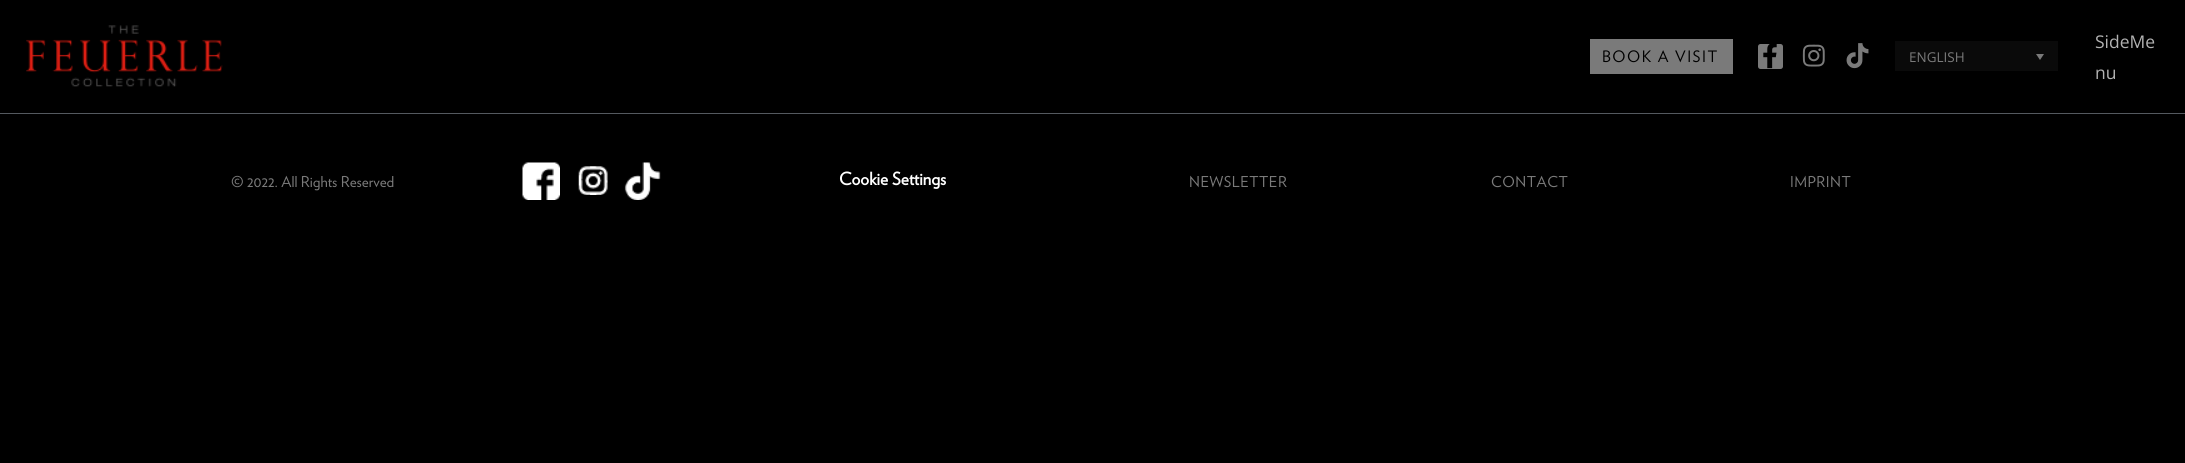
#include <cairo.h>
#include <math.h>
#include <stddef.h>


static void rgb(cairo_t *cr, int r, int g, int b)
{
	cairo_set_source_rgb(cr, r / 255.0, g / 255.0, b / 255.0);
}

static void face(cairo_t *cr, const char *family, double size, int italic, int bold)
{
	cairo_select_font_face(cr, family, italic ? CAIRO_FONT_SLANT_ITALIC : CAIRO_FONT_SLANT_NORMAL,
		bold ? CAIRO_FONT_WEIGHT_BOLD : CAIRO_FONT_WEIGHT_NORMAL);
	cairo_set_font_size(cr, size);
}

static void label(cairo_t *cr, double x, double y, const char *s)
{
	cairo_move_to(cr, x, y);
	cairo_show_text(cr, s);
}

static void tracked(cairo_t *cr, double x, double y, const char *s, double letter, double word)
{
	cairo_move_to(cr, x, y);
	while (*s) {
		char ch[5] = {0};
		int n = 0;
		do ch[n++] = *s++; while ((*s & 0xC0) == 0x80);
		cairo_show_text(cr, ch);
		cairo_rel_move_to(cr, letter + word * (*ch == ' '), 0);
	}
}

static void rect(cairo_t *cr, double x, double y, double w, double h)
{
	cairo_rectangle(cr, x, y, w, h);
	cairo_fill(cr);
}

static void rrect(cairo_t *cr, double x, double y, double w, double h, double r)
{
	cairo_new_sub_path(cr);
	cairo_arc(cr, x + w - r, y + h - r, r, 0, M_PI / 2);
	cairo_arc(cr, x + r, y + h - r, r, M_PI / 2, M_PI);
	cairo_arc(cr, x + r, y + r, r, M_PI, 1.5 * M_PI);
	cairo_arc(cr, x + w - r, y + r, r, 1.5 * M_PI, 2 * M_PI);
	cairo_close_path(cr);
}

static void image(cairo_t *cr, const char *path, double x, double y, double w, double h)
{
	cairo_surface_t *image = cairo_image_surface_create_from_png(path);
	cairo_save(cr);
	cairo_set_source_surface(cr, image, x, y);
	cairo_rectangle(cr, x, y, w, h);
	cairo_fill(cr);
	cairo_restore(cr);
	cairo_surface_destroy(image);
}

static void draw(cairo_t *cr) {
	rgb(cr, 0, 0, 0);
	cairo_paint(cr);
	rgb(cr, 84, 89, 95);
	rect(cr, 0, 113, 2185, 1);
	image(cr, "image0.png", 26, 25, 197, 62);
	rgb(cr, 122, 122, 122);
	rect(cr, 1590, 39, 143, 35);
	face(cr, "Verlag", 15.75, 0, 0);
	rgb(cr, 0, 0, 0);
	tracked(cr, 1602, 62, "BOOK A VISIT", 1.5, 0);
	rgb(cr, 122, 122, 122);
	rrect(cr, 1758, 44, 25, 25, 2.5);
	cairo_fill(cr);
	image(cr, "image1.png", 1763, 44, 14, 25);
	image(cr, "image2.png", 1802, 44, 23, 23);
	image(cr, "image3.png", 1846, 43, 23, 26);
	rgb(cr, 10, 10, 10);
	rect(cr, 1895, 41, 163, 30);
	face(cr, "Open Sans", 13.5, 0, 0);
	rgb(cr, 122, 122, 122);
	label(cr, 1909, 62, "ENGLISH");
	cairo_new_path(cr);
	cairo_move_to(cr, 2036, 54);
	cairo_line_to(cr, 2044, 54);
	cairo_line_to(cr, 2040, 60);
	cairo_close_path(cr);
	cairo_fill(cr);
	face(cr, "Open Sans", 17.5, 0, 0);
	rgb(cr, 178, 178, 178);
	label(cr, 2095, 48, "SideMe");
	label(cr, 2095, 79, "nu");
	face(cr, "Verlag", 15, 0, 0);
	rgb(cr, 122, 122, 122);
	label(cr, 231, 187, "© 2022. All Rights Reserved");
	image(cr, "image4.png", 522, 162, 38, 38);
	image(cr, "image5.png", 578, 166, 30, 29);
	image(cr, "image6.png", 624, 162, 37, 38);
	face(cr, "Verlag", 17.5, 0, 1);
	rgb(cr, 255, 255, 255);
	label(cr, 839, 185, "Cookie Settings");
	face(cr, "Verlag", 15, 0, 0);
	rgb(cr, 122, 122, 122);
	tracked(cr, 1189, 187, "NEWSLETTER", 0.5, 0);
	tracked(cr, 1491, 187, "CONTACT", 0.5, 0);
	tracked(cr, 1790, 187, "IMPRINT", 0.5, 0);
}

int main(void) {
	cairo_surface_t *surface = cairo_image_surface_create(CAIRO_FORMAT_RGB24, 2185, 463);
	cairo_t *cr = cairo_create(surface);
	cairo_font_options_t *options = cairo_font_options_create();
	cairo_font_options_set_hint_metrics(options, CAIRO_HINT_METRICS_OFF);
	cairo_font_options_set_hint_style(options, CAIRO_HINT_STYLE_NONE);
	cairo_set_font_options(cr, options);
	cairo_set_miter_limit(cr, 4);
	draw(cr);
	cairo_surface_write_to_png(surface, "render.png");
	cairo_font_options_destroy(options);
	cairo_destroy(cr);
	cairo_surface_destroy(surface);
	return 0;
}
